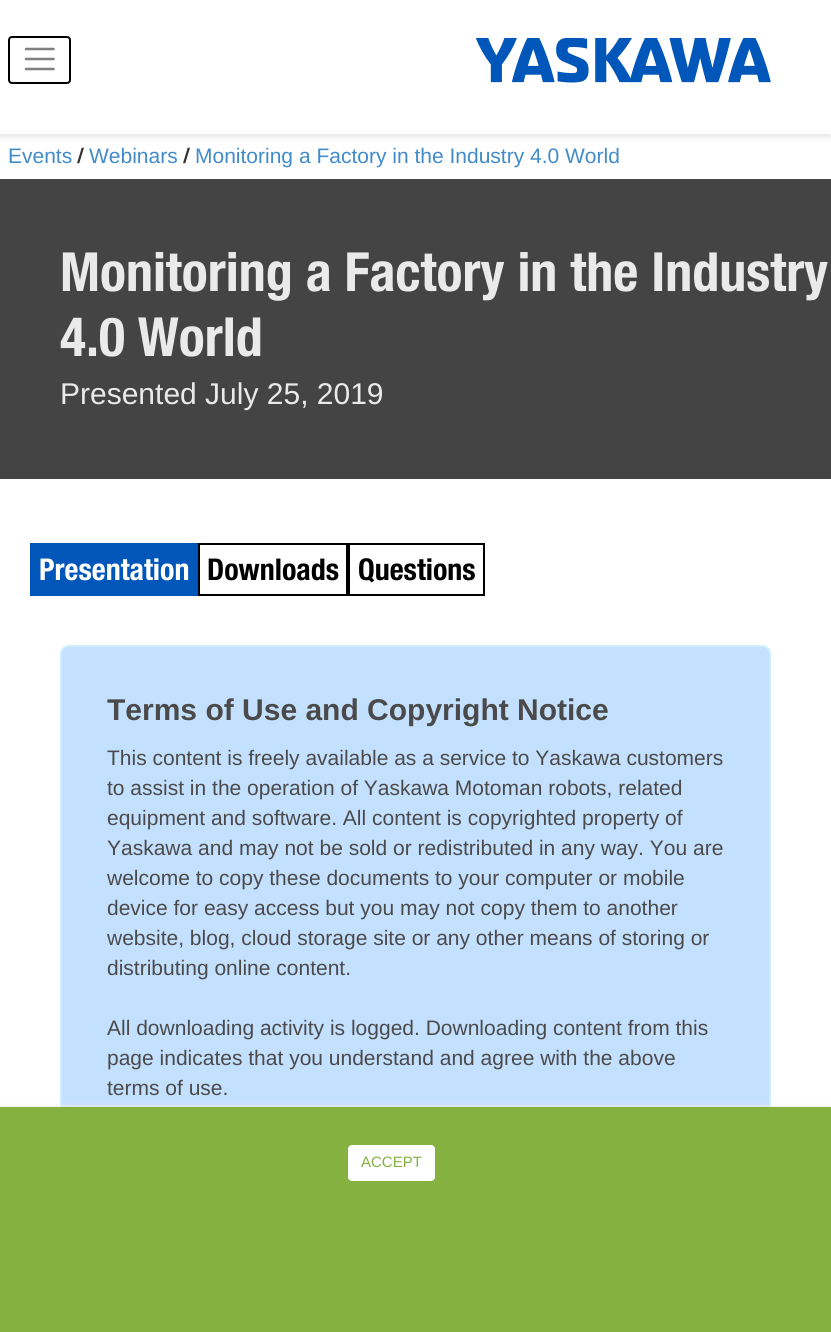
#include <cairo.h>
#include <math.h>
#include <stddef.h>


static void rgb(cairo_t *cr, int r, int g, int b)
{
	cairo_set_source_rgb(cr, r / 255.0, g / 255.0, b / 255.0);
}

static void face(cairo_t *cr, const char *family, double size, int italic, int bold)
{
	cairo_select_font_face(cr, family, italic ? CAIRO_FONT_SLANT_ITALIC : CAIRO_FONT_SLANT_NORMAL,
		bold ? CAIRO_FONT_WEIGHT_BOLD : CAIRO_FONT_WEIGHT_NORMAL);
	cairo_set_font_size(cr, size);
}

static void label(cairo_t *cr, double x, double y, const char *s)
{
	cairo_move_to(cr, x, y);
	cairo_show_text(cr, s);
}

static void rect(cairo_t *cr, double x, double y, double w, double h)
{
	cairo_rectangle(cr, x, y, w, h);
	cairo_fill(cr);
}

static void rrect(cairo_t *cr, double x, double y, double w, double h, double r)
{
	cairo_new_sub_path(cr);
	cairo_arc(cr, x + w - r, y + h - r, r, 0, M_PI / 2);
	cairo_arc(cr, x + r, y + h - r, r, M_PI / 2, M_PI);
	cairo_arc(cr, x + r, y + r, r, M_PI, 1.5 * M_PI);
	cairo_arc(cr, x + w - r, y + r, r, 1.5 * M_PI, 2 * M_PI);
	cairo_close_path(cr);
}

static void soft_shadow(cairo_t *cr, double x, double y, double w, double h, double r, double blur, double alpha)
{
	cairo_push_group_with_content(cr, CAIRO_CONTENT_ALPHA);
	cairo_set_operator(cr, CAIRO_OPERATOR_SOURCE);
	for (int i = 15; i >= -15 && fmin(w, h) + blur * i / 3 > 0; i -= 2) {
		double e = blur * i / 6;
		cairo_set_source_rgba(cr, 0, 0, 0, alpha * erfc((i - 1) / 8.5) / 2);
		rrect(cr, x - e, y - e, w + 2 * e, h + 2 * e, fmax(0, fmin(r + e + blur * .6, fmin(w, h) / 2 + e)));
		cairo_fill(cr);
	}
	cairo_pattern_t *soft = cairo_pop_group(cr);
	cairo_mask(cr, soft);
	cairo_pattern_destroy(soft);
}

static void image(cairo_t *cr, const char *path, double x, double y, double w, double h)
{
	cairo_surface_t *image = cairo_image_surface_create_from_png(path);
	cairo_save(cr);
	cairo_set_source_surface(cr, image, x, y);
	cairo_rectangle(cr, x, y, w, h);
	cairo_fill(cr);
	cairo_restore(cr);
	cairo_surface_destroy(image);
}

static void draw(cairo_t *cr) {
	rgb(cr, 255, 255, 255);
	cairo_paint(cr);
	rgb(cr, 0, 0, 0);
	soft_shadow(cr, 0, 3, 831, 134, 0, 3, 0.1);
	rgb(cr, 255, 255, 255);
	rect(cr, 0, 0, 831, 134);
	rrect(cr, 9, 37, 61, 46, 3);
	rgb(cr, 0, 0, 0);
	cairo_stroke(cr);
	cairo_new_path(cr);
	cairo_move_to(cr, 26, 49);
	cairo_line_to(cr, 53.5, 49);
	cairo_move_to(cr, 26, 59);
	cairo_line_to(cr, 53.5, 59);
	cairo_move_to(cr, 26, 69);
	cairo_line_to(cr, 53.5, 69);
	rgb(cr, 128, 128, 128);
	cairo_set_line_width(cr, 2.5);
	cairo_set_line_cap(cr, CAIRO_LINE_CAP_ROUND);
	cairo_stroke(cr);
	image(cr, "image0.png", 476, 38, 295, 45);
	face(cr, "Liberation Sans", 21, 0, 0);
	rgb(cr, 66, 139, 202);
	label(cr, 8, 163, "Events");
	face(cr, "Helvetica Neue", 21, 0, 1);
	rgb(cr, 51, 51, 51);
	label(cr, 77, 163, "/");
	face(cr, "Liberation Sans", 21, 0, 0);
	rgb(cr, 66, 139, 202);
	label(cr, 89, 163, "Webinars");
	face(cr, "Helvetica Neue", 21, 0, 1);
	rgb(cr, 51, 51, 51);
	label(cr, 183, 163, "/");
	face(cr, "Liberation Sans", 21, 0, 0);
	rgb(cr, 66, 139, 202);
	label(cr, 195, 163, "Monitoring a Factory in the Industry 4.0 World");
	rgb(cr, 68, 68, 68);
	rect(cr, 0, 179, 831, 300);
	face(cr, "Helvetica Neue", 54, 0, 1);
	rgb(cr, 234, 234, 234);
	label(cr, 60, 291, "Monitoring a Factory in the Industry");
	label(cr, 60, 356, "4.0 World");
	face(cr, "Liberation Sans", 30, 0, 0);
	label(cr, 60, 404, "Presented July 25, 2019");
	rgb(cr, 0, 86, 185);
	rect(cr, 30, 543, 168, 53);
	face(cr, "Helvetica Neue", 30, 0, 1);
	rgb(cr, 255, 255, 255);
	label(cr, 39, 580, "Presentation");
	cairo_rectangle(cr, 199, 544, 148, 51);
	rgb(cr, 0, 0, 0);
	cairo_set_line_width(cr, 2);
	cairo_set_line_cap(cr, CAIRO_LINE_CAP_BUTT);
	cairo_stroke(cr);
	label(cr, 207, 580, "Downloads");
	cairo_rectangle(cr, 349, 544, 135, 51);
	cairo_stroke(cr);
	label(cr, 358, 580, "Questions");
	rgb(cr, 196, 224, 255);
	rrect(cr, 61, 646, 709, 502, 8);
	cairo_fill_preserve(cr);
	rgb(cr, 206, 237, 255);
	cairo_stroke(cr);
	face(cr, "Liberation Sans", 30, 0, 1);
	rgb(cr, 74, 74, 74);
	label(cr, 107, 720, "Terms of Use and Copyright Notice");
	face(cr, "Liberation Sans", 21, 0, 0);
	label(cr, 107, 765, "This content is freely available as a service to Yaskawa customers");
	label(cr, 107, 795, "to assist in the operation of Yaskawa Motoman robots, related");
	label(cr, 107, 825, "equipment and software. All content is copyrighted property of");
	label(cr, 107, 855, "Yaskawa and may not be sold or redistributed in any way. You are");
	label(cr, 107, 885, "welcome to copy these documents to your computer or mobile");
	label(cr, 107, 915, "device for easy access but you may not copy them to another");
	label(cr, 107, 945, "website, blog, cloud storage site or any other means of storing or");
	label(cr, 107, 975, "distributing online content.");
	label(cr, 107, 1035, "All downloading activity is logged. Downloading content from this");
	label(cr, 107, 1065, "page indicates that you understand and agree with the above");
	label(cr, 107, 1095, "terms of use.");
	rgb(cr, 234, 240, 246);
	soft_shadow(cr, 0, 1106, 831, 225, 0, 2, 1);
	rgb(cr, 132, 177, 64);
	rect(cr, 0, 1107, 831, 225);
	rgb(cr, 255, 255, 255);
	rrect(cr, 348, 1145, 87, 36, 4);
	cairo_fill(cr);
	face(cr, "Liberation Sans", 15, 0, 0);
	rgb(cr, 132, 177, 64);
	label(cr, 361, 1167, "ACCEPT");
}

int main(void) {
	cairo_surface_t *surface = cairo_image_surface_create(CAIRO_FORMAT_RGB24, 831, 1332);
	cairo_t *cr = cairo_create(surface);
	cairo_font_options_t *options = cairo_font_options_create();
	cairo_font_options_set_hint_metrics(options, CAIRO_HINT_METRICS_OFF);
	cairo_font_options_set_hint_style(options, CAIRO_HINT_STYLE_NONE);
	cairo_set_font_options(cr, options);
	cairo_set_miter_limit(cr, 4);
	draw(cr);
	cairo_surface_write_to_png(surface, "render.png");
	cairo_font_options_destroy(options);
	cairo_destroy(cr);
	cairo_surface_destroy(surface);
	return 0;
}
